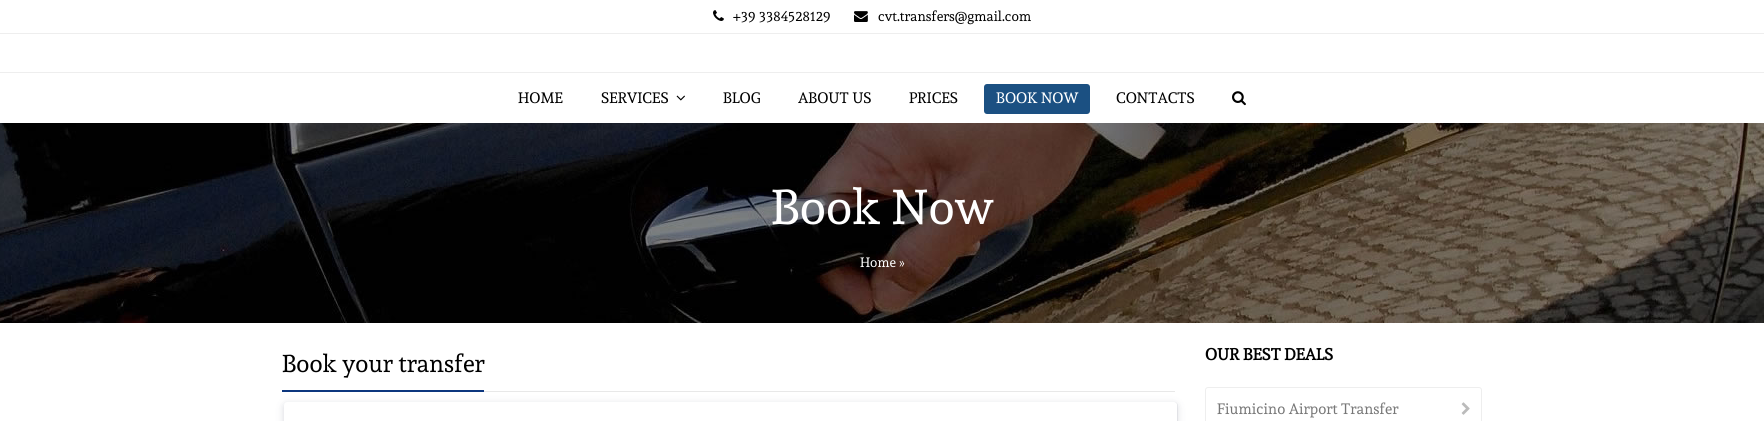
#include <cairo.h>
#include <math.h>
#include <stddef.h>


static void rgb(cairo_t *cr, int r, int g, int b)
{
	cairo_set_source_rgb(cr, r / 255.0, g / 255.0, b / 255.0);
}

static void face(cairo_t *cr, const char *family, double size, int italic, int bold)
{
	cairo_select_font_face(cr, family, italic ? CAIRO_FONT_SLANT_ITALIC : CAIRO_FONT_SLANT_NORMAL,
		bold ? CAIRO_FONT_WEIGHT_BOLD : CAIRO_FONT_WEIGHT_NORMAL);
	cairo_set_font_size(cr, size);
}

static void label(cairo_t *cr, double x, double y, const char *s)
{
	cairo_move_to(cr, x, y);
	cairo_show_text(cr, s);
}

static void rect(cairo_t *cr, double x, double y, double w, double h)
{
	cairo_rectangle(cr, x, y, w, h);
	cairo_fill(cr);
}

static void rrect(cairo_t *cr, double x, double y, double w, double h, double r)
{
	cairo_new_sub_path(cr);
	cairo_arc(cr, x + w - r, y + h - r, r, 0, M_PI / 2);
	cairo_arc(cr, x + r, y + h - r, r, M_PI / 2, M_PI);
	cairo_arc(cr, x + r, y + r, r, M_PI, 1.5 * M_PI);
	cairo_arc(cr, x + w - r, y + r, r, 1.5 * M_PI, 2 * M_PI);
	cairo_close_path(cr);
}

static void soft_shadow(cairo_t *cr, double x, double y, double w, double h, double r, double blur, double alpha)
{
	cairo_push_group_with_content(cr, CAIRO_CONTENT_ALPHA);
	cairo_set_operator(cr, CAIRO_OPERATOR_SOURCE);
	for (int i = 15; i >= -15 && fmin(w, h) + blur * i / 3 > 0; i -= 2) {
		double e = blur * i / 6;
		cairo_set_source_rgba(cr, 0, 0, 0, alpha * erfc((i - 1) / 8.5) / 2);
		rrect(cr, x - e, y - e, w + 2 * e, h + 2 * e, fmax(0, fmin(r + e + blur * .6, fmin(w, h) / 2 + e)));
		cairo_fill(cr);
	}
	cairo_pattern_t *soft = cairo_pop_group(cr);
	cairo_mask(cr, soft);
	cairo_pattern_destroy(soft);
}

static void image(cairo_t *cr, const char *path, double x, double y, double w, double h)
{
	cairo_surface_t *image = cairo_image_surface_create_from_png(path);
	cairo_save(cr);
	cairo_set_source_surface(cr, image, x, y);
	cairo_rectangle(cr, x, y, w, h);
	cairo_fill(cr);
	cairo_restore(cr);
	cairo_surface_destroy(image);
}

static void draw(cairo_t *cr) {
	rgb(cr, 255, 255, 255);
	cairo_paint(cr);
	rgb(cr, 238, 238, 238);
	rect(cr, 0, 33, 1764, 1);
	image(cr, "image0.png", 713, 10, 11, 11);
	face(cr, "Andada", 13.8, 0, 0);
	rgb(cr, 0, 0, 0);
	label(cr, 733, 21, "+39 3384528129");
	image(cr, "image1.png", 854, 11, 14, 11);
	label(cr, 878, 21, "cvt.transfers@gmail.com");
	rgb(cr, 238, 238, 238);
	rect(cr, 0, 72, 1764, 1);
	face(cr, "Andada", 15, 0, 0);
	rgb(cr, 0, 0, 0);
	label(cr, 518, 103, "HOME");
	label(cr, 601, 103, "SERVICES");
	image(cr, "image2.png", 676, 95, 9, 6);
	label(cr, 723, 103, "BLOG");
	label(cr, 798, 103, "ABOUT US");
	label(cr, 909, 103, "PRICES");
	rgb(cr, 27, 80, 130);
	rrect(cr, 984, 84, 106, 30, 3);
	cairo_fill(cr);
	rgb(cr, 255, 255, 255);
	label(cr, 996, 103, "BOOK NOW");
	rgb(cr, 0, 0, 0);
	label(cr, 1116, 103, "CONTACTS");
	image(cr, "image3.png", 1232, 91, 14, 15);
	image(cr, "image4.png", 0, 123, 1764, 200);
	face(cr, "Andada", 48.5, 0, 0);
	rgb(cr, 255, 255, 255);
	label(cr, 771, 224, "Book Now");
	face(cr, "Andada", 13.5, 0, 0);
	label(cr, 860, 267, "Home »");
	rgb(cr, 232, 232, 232);
	rect(cr, 484, 391, 691, 1);
	rgb(cr, 12, 54, 126);
	rect(cr, 282, 390, 202, 2);
	face(cr, "Andada", 24.25, 0, 0);
	rgb(cr, 0, 0, 0);
	label(cr, 282, 372, "Book your transfer");
	rgb(cr, 50, 55, 90);
	soft_shadow(cr, 284, 404, 893, 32, 3, 4, 0.2);
	rrect(cr, 284.25, 402.25, 893.5, 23.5, 3.75);
	cairo_set_source_rgba(cr, 0, 0.078, 0.157, 0.1);
	cairo_set_line_width(cr, 0.5);
	cairo_stroke(cr);
	rgb(cr, 255, 255, 255);
	rrect(cr, 284, 402, 893, 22, 3);
	cairo_fill(cr);
	face(cr, "Andada", 16.25, 0, 1);
	rgb(cr, 0, 0, 0);
	label(cr, 1205, 360, "OUR BEST DEALS");
	rrect(cr, 1205.5, 387.5, 276, 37, 2.5);
	rgb(cr, 238, 238, 238);
	cairo_set_line_width(cr, 1);
	cairo_stroke(cr);
	face(cr, "Andada", 15, 0, 0);
	rgb(cr, 119, 119, 119);
	label(cr, 1217, 414, "Fiumicino Airport Transfer");
	image(cr, "image5.png", 1461, 402, 9, 13);
}

int main(void) {
	cairo_surface_t *surface = cairo_image_surface_create(CAIRO_FORMAT_RGB24, 1764, 421);
	cairo_t *cr = cairo_create(surface);
	cairo_font_options_t *options = cairo_font_options_create();
	cairo_font_options_set_hint_metrics(options, CAIRO_HINT_METRICS_OFF);
	cairo_font_options_set_hint_style(options, CAIRO_HINT_STYLE_NONE);
	cairo_set_font_options(cr, options);
	cairo_set_miter_limit(cr, 4);
	draw(cr);
	cairo_surface_write_to_png(surface, "render.png");
	cairo_font_options_destroy(options);
	cairo_destroy(cr);
	cairo_surface_destroy(surface);
	return 0;
}
